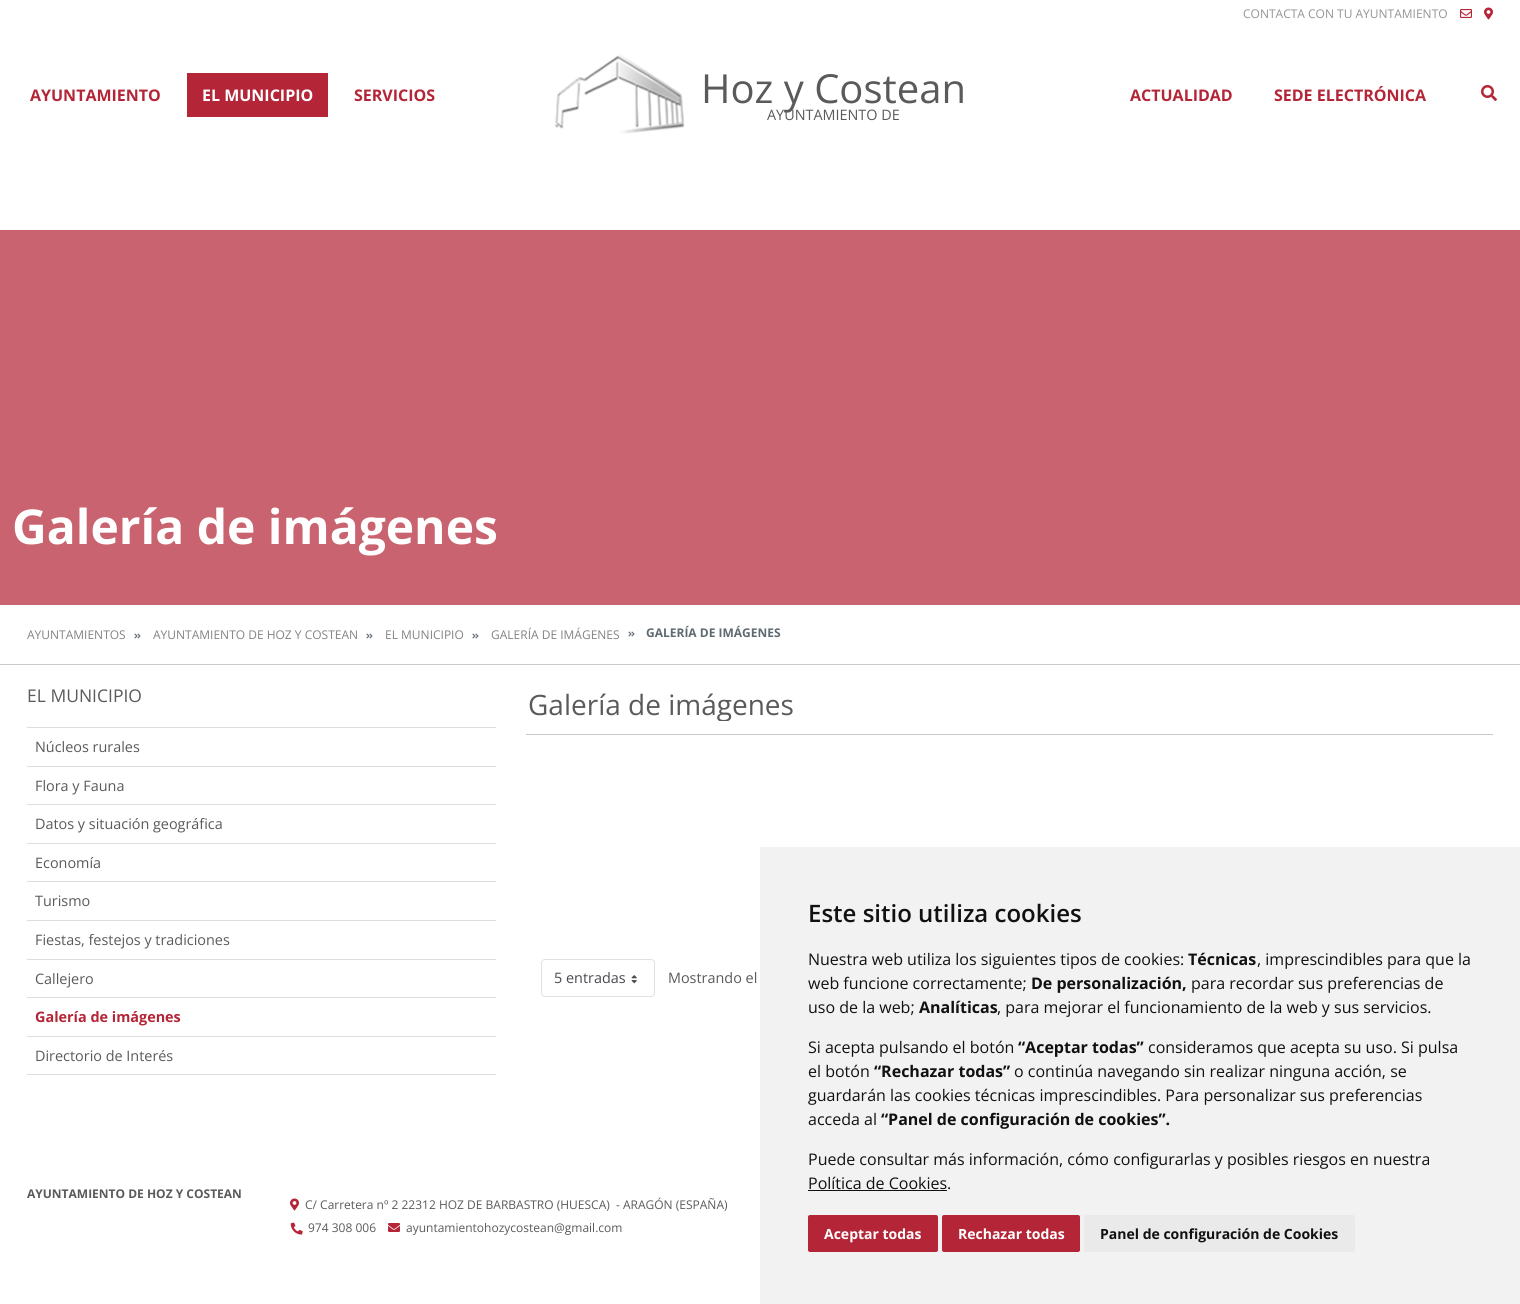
#include <cairo.h>
#include <math.h>
#include <stddef.h>


static void rgb(cairo_t *cr, int r, int g, int b)
{
	cairo_set_source_rgb(cr, r / 255.0, g / 255.0, b / 255.0);
}

static void face(cairo_t *cr, const char *family, double size, int italic, int bold)
{
	cairo_select_font_face(cr, family, italic ? CAIRO_FONT_SLANT_ITALIC : CAIRO_FONT_SLANT_NORMAL,
		bold ? CAIRO_FONT_WEIGHT_BOLD : CAIRO_FONT_WEIGHT_NORMAL);
	cairo_set_font_size(cr, size);
}

static void label(cairo_t *cr, double x, double y, const char *s)
{
	cairo_move_to(cr, x, y);
	cairo_show_text(cr, s);
}

static void rect(cairo_t *cr, double x, double y, double w, double h)
{
	cairo_rectangle(cr, x, y, w, h);
	cairo_fill(cr);
}

static void rrect(cairo_t *cr, double x, double y, double w, double h, double r)
{
	cairo_new_sub_path(cr);
	cairo_arc(cr, x + w - r, y + h - r, r, 0, M_PI / 2);
	cairo_arc(cr, x + r, y + h - r, r, M_PI / 2, M_PI);
	cairo_arc(cr, x + r, y + r, r, M_PI, 1.5 * M_PI);
	cairo_arc(cr, x + w - r, y + r, r, 1.5 * M_PI, 2 * M_PI);
	cairo_close_path(cr);
}

static void image(cairo_t *cr, const char *path, double x, double y, double w, double h)
{
	cairo_surface_t *image = cairo_image_surface_create_from_png(path);
	cairo_save(cr);
	cairo_set_source_surface(cr, image, x, y);
	cairo_rectangle(cr, x, y, w, h);
	cairo_fill(cr);
	cairo_restore(cr);
	cairo_surface_destroy(image);
}

static void draw(cairo_t *cr) {
	rgb(cr, 255, 255, 255);
	cairo_paint(cr);
	face(cr, "Open Sans", 12, 0, 0);
	rgb(cr, 148, 148, 148);
	label(cr, 1243, 18, "CONTACTA CON TU AYUNTAMIENTO");
	image(cr, "image0.png", 1460, 9, 12, 9);
	image(cr, "image1.png", 1484, 7, 9, 13);
	image(cr, "image2.png", 554, 54, 131, 80);
	face(cr, "Open Sans", 40, 0, 0);
	rgb(cr, 90, 90, 90);
	label(cr, 701, 103, "Hoz y Costean");
	face(cr, "Open Sans", 14.4, 0, 0);
	label(cr, 767, 120, "AYUNTAMIENTO DE");
	face(cr, "Open Sans", 16, 0, 1);
	rgb(cr, 180, 38, 55);
	label(cr, 30, 101, "AYUNTAMIENTO");
	rect(cr, 187, 73, 141, 44);
	rgb(cr, 255, 255, 255);
	label(cr, 202, 101, "EL MUNICIPIO");
	rgb(cr, 180, 38, 55);
	label(cr, 354, 101, "SERVICIOS");
	label(cr, 1130, 101, "ACTUALIDAD");
	label(cr, 1274, 101, "SEDE ELECTRÓNICA");
	image(cr, "image3.png", 1481, 85, 16, 16);
	rgb(cr, 201, 99, 111);
	rect(cr, 0, 230, 1520, 375);
	face(cr, "Open Sans", 48, 0, 1);
	rgb(cr, 255, 255, 255);
	label(cr, 12, 544, "Galería de imágenes");
	rgb(cr, 202, 201, 201);
	rect(cr, 0, 664, 1520, 1);
	face(cr, "Open Sans", 12, 0, 0);
	rgb(cr, 131, 131, 131);
	label(cr, 27, 639, "AYUNTAMIENTOS");
	image(cr, "image4.png", 134, 633, 7, 6);
	label(cr, 153, 639, "AYUNTAMIENTO DE HOZ Y COSTEAN");
	image(cr, "image4.png", 366, 633, 7, 6);
	label(cr, 385, 639, "EL MUNICIPIO");
	image(cr, "image4.png", 472, 633, 7, 6);
	label(cr, 491, 639, "GALERÍA DE IMÁGENES");
	image(cr, "image4.png", 628, 631, 7, 6);
	face(cr, "Open Sans", 12, 0, 1);
	rgb(cr, 94, 106, 113);
	label(cr, 646, 637, "GALERÍA DE IMÁGENES");
	rgb(cr, 217, 222, 225);
	rect(cr, 27, 727, 469, 1);
	face(cr, "Open Sans", 17.5, 0, 0);
	rgb(cr, 90, 90, 90);
	label(cr, 27, 702, "EL MUNICIPIO");
	rgb(cr, 217, 222, 225);
	rect(cr, 27, 766, 469, 1);
	face(cr, "Open Sans", 14.4, 0, 0);
	rgb(cr, 90, 90, 90);
	label(cr, 35, 752, "Núcleos rurales");
	rgb(cr, 217, 222, 225);
	rect(cr, 27, 804, 469, 1);
	rgb(cr, 90, 90, 90);
	label(cr, 35, 791, "Flora y Fauna");
	rgb(cr, 217, 222, 225);
	rect(cr, 27, 843, 469, 1);
	rgb(cr, 90, 90, 90);
	label(cr, 35, 829, "Datos y situación geográfica");
	rgb(cr, 217, 222, 225);
	rect(cr, 27, 881, 469, 1);
	rgb(cr, 90, 90, 90);
	label(cr, 35, 868, "Economía");
	rgb(cr, 217, 222, 225);
	rect(cr, 27, 920, 469, 1);
	rgb(cr, 90, 90, 90);
	label(cr, 35, 906, "Turismo");
	rgb(cr, 217, 222, 225);
	rect(cr, 27, 959, 469, 1);
	rgb(cr, 90, 90, 90);
	label(cr, 35, 945, "Fiestas, festejos y tradiciones");
	rgb(cr, 217, 222, 225);
	rect(cr, 27, 997, 469, 1);
	rgb(cr, 90, 90, 90);
	label(cr, 35, 984, "Callejero");
	rgb(cr, 217, 222, 225);
	rect(cr, 27, 1036, 469, 1);
	face(cr, "Open Sans", 14.4, 0, 1);
	rgb(cr, 180, 38, 55);
	label(cr, 35, 1022, "Galería de imágenes");
	rgb(cr, 217, 222, 225);
	rect(cr, 27, 1074, 469, 1);
	face(cr, "Open Sans", 14.4, 0, 0);
	rgb(cr, 90, 90, 90);
	label(cr, 35, 1061, "Directorio de Interés");
	rgb(cr, 200, 201, 202);
	rect(cr, 526, 734, 967, 1);
	cairo_save(cr);
	cairo_rectangle(cr, 528, 688, 266, 33);
	cairo_clip(cr);
	face(cr, "Open Sans", 28, 0, 0);
	rgb(cr, 90, 90, 90);
	label(cr, 528, 715, "Galería de imágenes");
	cairo_restore(cr);
	rrect(cr, 541.5, 959.5, 113, 37, 3.5);
	rgb(cr, 222, 226, 230);
	cairo_set_line_width(cr, 1);
	cairo_stroke(cr);
	rgb(cr, 71, 73, 77);
	label(cr, 554, 983, "5 entradas");
	image(cr, "image5.png", 631, 975, 6, 9);
	rgb(cr, 90, 90, 90);
	label(cr, 668, 983, "Mostrando el");
	face(cr, "Open Sans", 12, 0, 1);
	label(cr, 27, 1198, "AYUNTAMIENTO DE HOZ Y COSTEAN");
	image(cr, "image1.png", 290, 1198, 9, 13);
	face(cr, "Open Sans", 12, 0, 0);
	label(cr, 305, 1209, "C/ Carretera nº 2 22312 HOZ DE BARBASTRO (HUESCA)");
	label(cr, 616, 1209, "- ARAGÓN (ESPAÑA)");
	image(cr, "image6.png", 290, 1222, 13, 13);
	label(cr, 308, 1232, "974 308 006");
	image(cr, "image7.png", 388, 1223, 12, 9);
	label(cr, 406, 1232, "ayuntamientohozycostean@gmail.com");
	rgb(cr, 242, 242, 242);
	rect(cr, 760, 847, 760, 457);
	face(cr, "Open Sans SemiBold", 24, 0, 0);
	rgb(cr, 17, 17, 17);
	label(cr, 808, 922, "Este sitio utiliza cookies");
	face(cr, "Open Sans", 16, 0, 0);
	label(cr, 808, 965, "Nuestra web utiliza los siguientes tipos de cookies:");
	face(cr, "Open Sans", 16, 0, 1);
	label(cr, 1188, 965, "Técnicas");
	face(cr, "Open Sans", 16, 0, 0);
	label(cr, 1257, 965, ", imprescindibles para que la");
	label(cr, 808, 989, "web funcione correctamente;");
	face(cr, "Open Sans", 16, 0, 1);
	label(cr, 1031, 989, "De personalización,");
	face(cr, "Open Sans", 16, 0, 0);
	label(cr, 1191, 989, "para recordar sus preferencias de");
	label(cr, 808, 1013, "uso de la web;");
	face(cr, "Open Sans", 16, 0, 1);
	label(cr, 919, 1013, "Analíticas");
	face(cr, "Open Sans", 16, 0, 0);
	label(cr, 997, 1013, ", para mejorar el funcionamiento de la web y sus servicios.");
	label(cr, 808, 1053, "Si acepta pulsando el botón");
	face(cr, "Open Sans", 16, 0, 1);
	label(cr, 1018, 1053, "“Aceptar todas”");
	face(cr, "Open Sans", 16, 0, 0);
	label(cr, 1148, 1053, "consideramos que acepta su uso. Si pulsa");
	label(cr, 808, 1077, "el botón");
	face(cr, "Open Sans", 16, 0, 1);
	label(cr, 874, 1077, "“Rechazar todas”");
	face(cr, "Open Sans", 16, 0, 0);
	label(cr, 1014, 1077, "o continúa navegando sin realizar ninguna acción, se");
	label(cr, 808, 1101, "guardarán las cookies técnicas imprescindibles. Para personalizar sus preferencias");
	label(cr, 808, 1125, "acceda al");
	face(cr, "Open Sans", 16, 0, 1);
	label(cr, 881, 1125, "“Panel de configuración de cookies”.");
	face(cr, "Open Sans", 16, 0, 0);
	label(cr, 808, 1165, "Puede consultar más información, cómo configurarlas y posibles riesgos en nuestra");
	label(cr, 808, 1189, "Política de Cookies.");
	rect(cr, 808, 1190, 139, 1);
	rgb(cr, 180, 38, 55);
	rrect(cr, 808, 1215, 130, 37, 2);
	cairo_fill(cr);
	face(cr, "Open Sans", 14, 0, 1);
	rgb(cr, 255, 255, 255);
	label(cr, 824, 1239, "Aceptar todas");
	rgb(cr, 180, 38, 55);
	rrect(cr, 942, 1215, 138, 37, 2);
	cairo_fill(cr);
	rgb(cr, 255, 255, 255);
	label(cr, 958, 1239, "Rechazar todas");
	rgb(cr, 234, 234, 234);
	rrect(cr, 1084, 1215, 271, 37, 2);
	cairo_fill(cr);
	rgb(cr, 17, 17, 17);
	label(cr, 1100, 1239, "Panel de configuración de Cookies");
}

int main(void) {
	cairo_surface_t *surface = cairo_image_surface_create(CAIRO_FORMAT_RGB24, 1520, 1304);
	cairo_t *cr = cairo_create(surface);
	cairo_font_options_t *options = cairo_font_options_create();
	cairo_font_options_set_hint_metrics(options, CAIRO_HINT_METRICS_OFF);
	cairo_font_options_set_hint_style(options, CAIRO_HINT_STYLE_NONE);
	cairo_set_font_options(cr, options);
	cairo_set_miter_limit(cr, 4);
	draw(cr);
	cairo_surface_write_to_png(surface, "render.png");
	cairo_font_options_destroy(options);
	cairo_destroy(cr);
	cairo_surface_destroy(surface);
	return 0;
}
